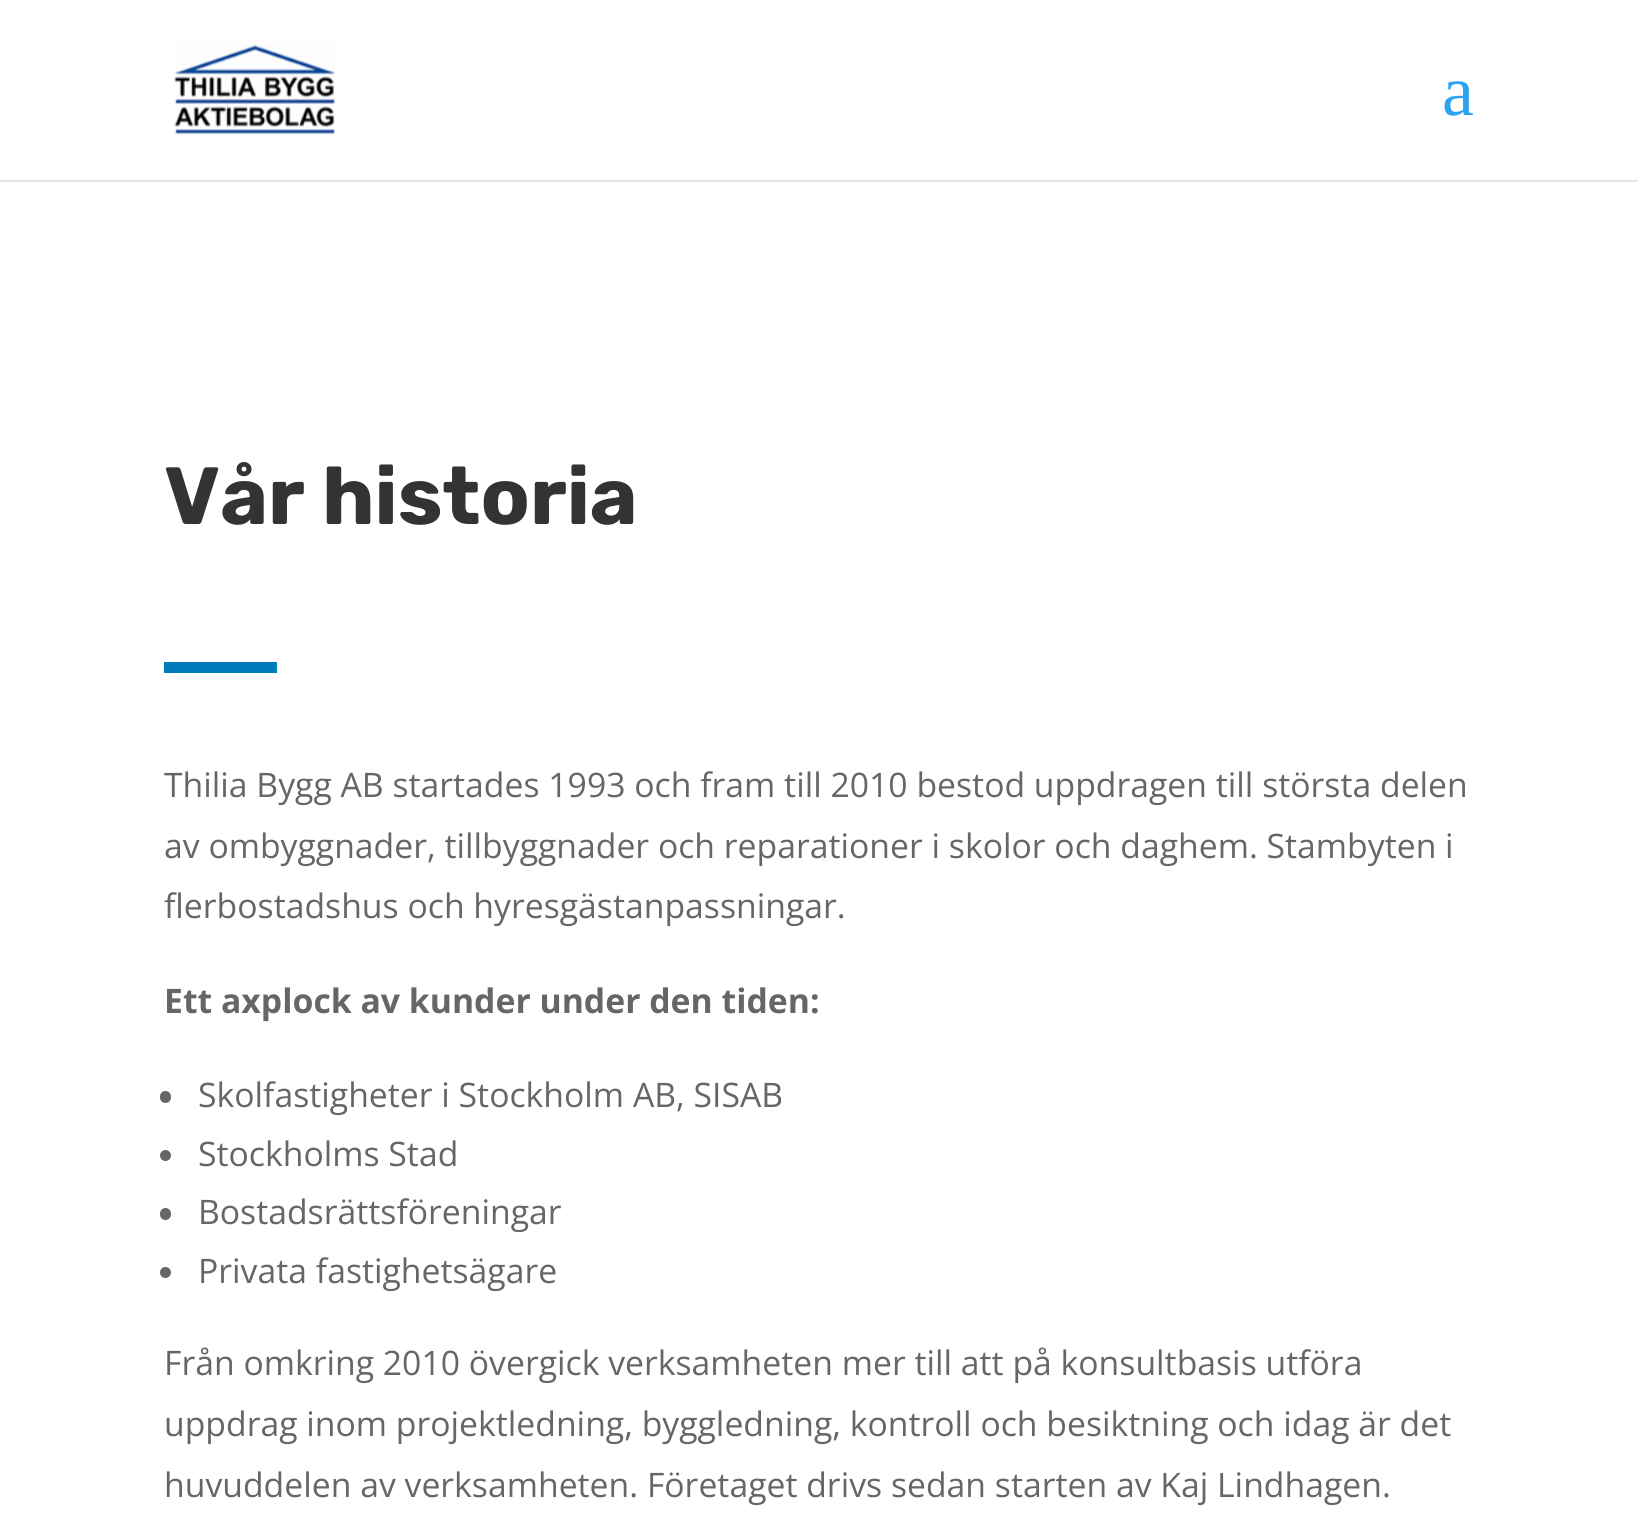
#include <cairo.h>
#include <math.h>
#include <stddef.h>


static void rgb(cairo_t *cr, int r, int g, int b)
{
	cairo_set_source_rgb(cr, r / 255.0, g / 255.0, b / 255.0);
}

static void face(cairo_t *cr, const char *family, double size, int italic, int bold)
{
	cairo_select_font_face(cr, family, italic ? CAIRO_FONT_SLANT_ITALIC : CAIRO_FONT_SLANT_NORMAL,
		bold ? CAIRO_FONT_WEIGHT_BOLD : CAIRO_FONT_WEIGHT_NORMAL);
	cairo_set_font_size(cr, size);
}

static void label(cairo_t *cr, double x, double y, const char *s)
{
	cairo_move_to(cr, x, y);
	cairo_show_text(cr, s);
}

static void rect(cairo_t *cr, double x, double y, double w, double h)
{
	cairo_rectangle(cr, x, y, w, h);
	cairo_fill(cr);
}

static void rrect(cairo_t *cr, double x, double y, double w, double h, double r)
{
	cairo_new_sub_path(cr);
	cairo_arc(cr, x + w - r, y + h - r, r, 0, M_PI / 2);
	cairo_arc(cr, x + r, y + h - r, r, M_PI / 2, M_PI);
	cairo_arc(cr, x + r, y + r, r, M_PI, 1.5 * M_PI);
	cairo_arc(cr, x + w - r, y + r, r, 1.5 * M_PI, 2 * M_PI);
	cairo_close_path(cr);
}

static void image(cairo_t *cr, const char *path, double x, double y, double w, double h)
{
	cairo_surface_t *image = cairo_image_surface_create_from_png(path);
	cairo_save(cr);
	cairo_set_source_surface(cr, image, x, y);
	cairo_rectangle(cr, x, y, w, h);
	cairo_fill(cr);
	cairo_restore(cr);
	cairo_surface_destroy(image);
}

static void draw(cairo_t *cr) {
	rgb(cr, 255, 255, 255);
	cairo_paint(cr);
	rgb(cr, 230, 230, 230);
	rect(cr, 0, 180, 1638, 2);
	image(cr, "image0.png", 174, 44, 161, 91);
	face(cr, "Liberation Serif", 72, 0, 0);
	rgb(cr, 46, 163, 242);
	label(cr, 1442, 115, "a");
	face(cr, "Rubik Light", 81, 0, 0);
	rgb(cr, 51, 51, 51);
	label(cr, 164, 524, "Vår historia");
	rgb(cr, 0, 124, 186);
	rect(cr, 164, 662, 113, 11);
	face(cr, "Open Sans", 33.75, 0, 0);
	rgb(cr, 102, 102, 102);
	label(cr, 164, 797, "Thilia Bygg AB startades 1993 och fram till 2010 bestod uppdragen till största delen");
	label(cr, 164, 858, "av ombyggnader, tillbyggnader och reparationer i skolor och daghem. Stambyten i");
	label(cr, 164, 918, "flerbostadshus och hyresgästanpassningar.");
	face(cr, "Open Sans", 33.75, 0, 1);
	label(cr, 164, 1013, "Ett axplock av kunder under den tiden:");
	rrect(cr, 160, 1091, 11, 12, 5.5);
	cairo_fill(cr);
	face(cr, "Open Sans", 33.75, 0, 0);
	label(cr, 198, 1107, "Skolfastigheter i Stockholm AB, SISAB");
	cairo_new_path(cr);
	cairo_arc(cr, 165.5, 1155.5, 5.5, 0, 2 * M_PI);
	cairo_fill(cr);
	label(cr, 198, 1166, "Stockholms Stad");
	rrect(cr, 160, 1208, 11, 12, 5.5);
	cairo_fill(cr);
	label(cr, 198, 1224, "Bostadsrättsföreningar");
	cairo_new_path(cr);
	cairo_arc(cr, 165.5, 1272.5, 5.5, 0, 2 * M_PI);
	cairo_fill(cr);
	label(cr, 198, 1283, "Privata fastighetsägare");
	label(cr, 164, 1375, "Från omkring 2010 övergick verksamheten mer till att på konsultbasis utföra");
	label(cr, 164, 1436, "uppdrag inom projektledning, byggledning, kontroll och besiktning och idag är det");
	label(cr, 164, 1497, "huvuddelen av verksamheten. Företaget drivs sedan starten av Kaj Lindhagen.");
}

int main(void) {
	cairo_surface_t *surface = cairo_image_surface_create(CAIRO_FORMAT_RGB24, 1638, 1528);
	cairo_t *cr = cairo_create(surface);
	cairo_font_options_t *options = cairo_font_options_create();
	cairo_font_options_set_hint_metrics(options, CAIRO_HINT_METRICS_OFF);
	cairo_font_options_set_hint_style(options, CAIRO_HINT_STYLE_NONE);
	cairo_set_font_options(cr, options);
	cairo_set_miter_limit(cr, 4);
	draw(cr);
	cairo_surface_write_to_png(surface, "render.png");
	cairo_font_options_destroy(options);
	cairo_destroy(cr);
	cairo_surface_destroy(surface);
	return 0;
}
